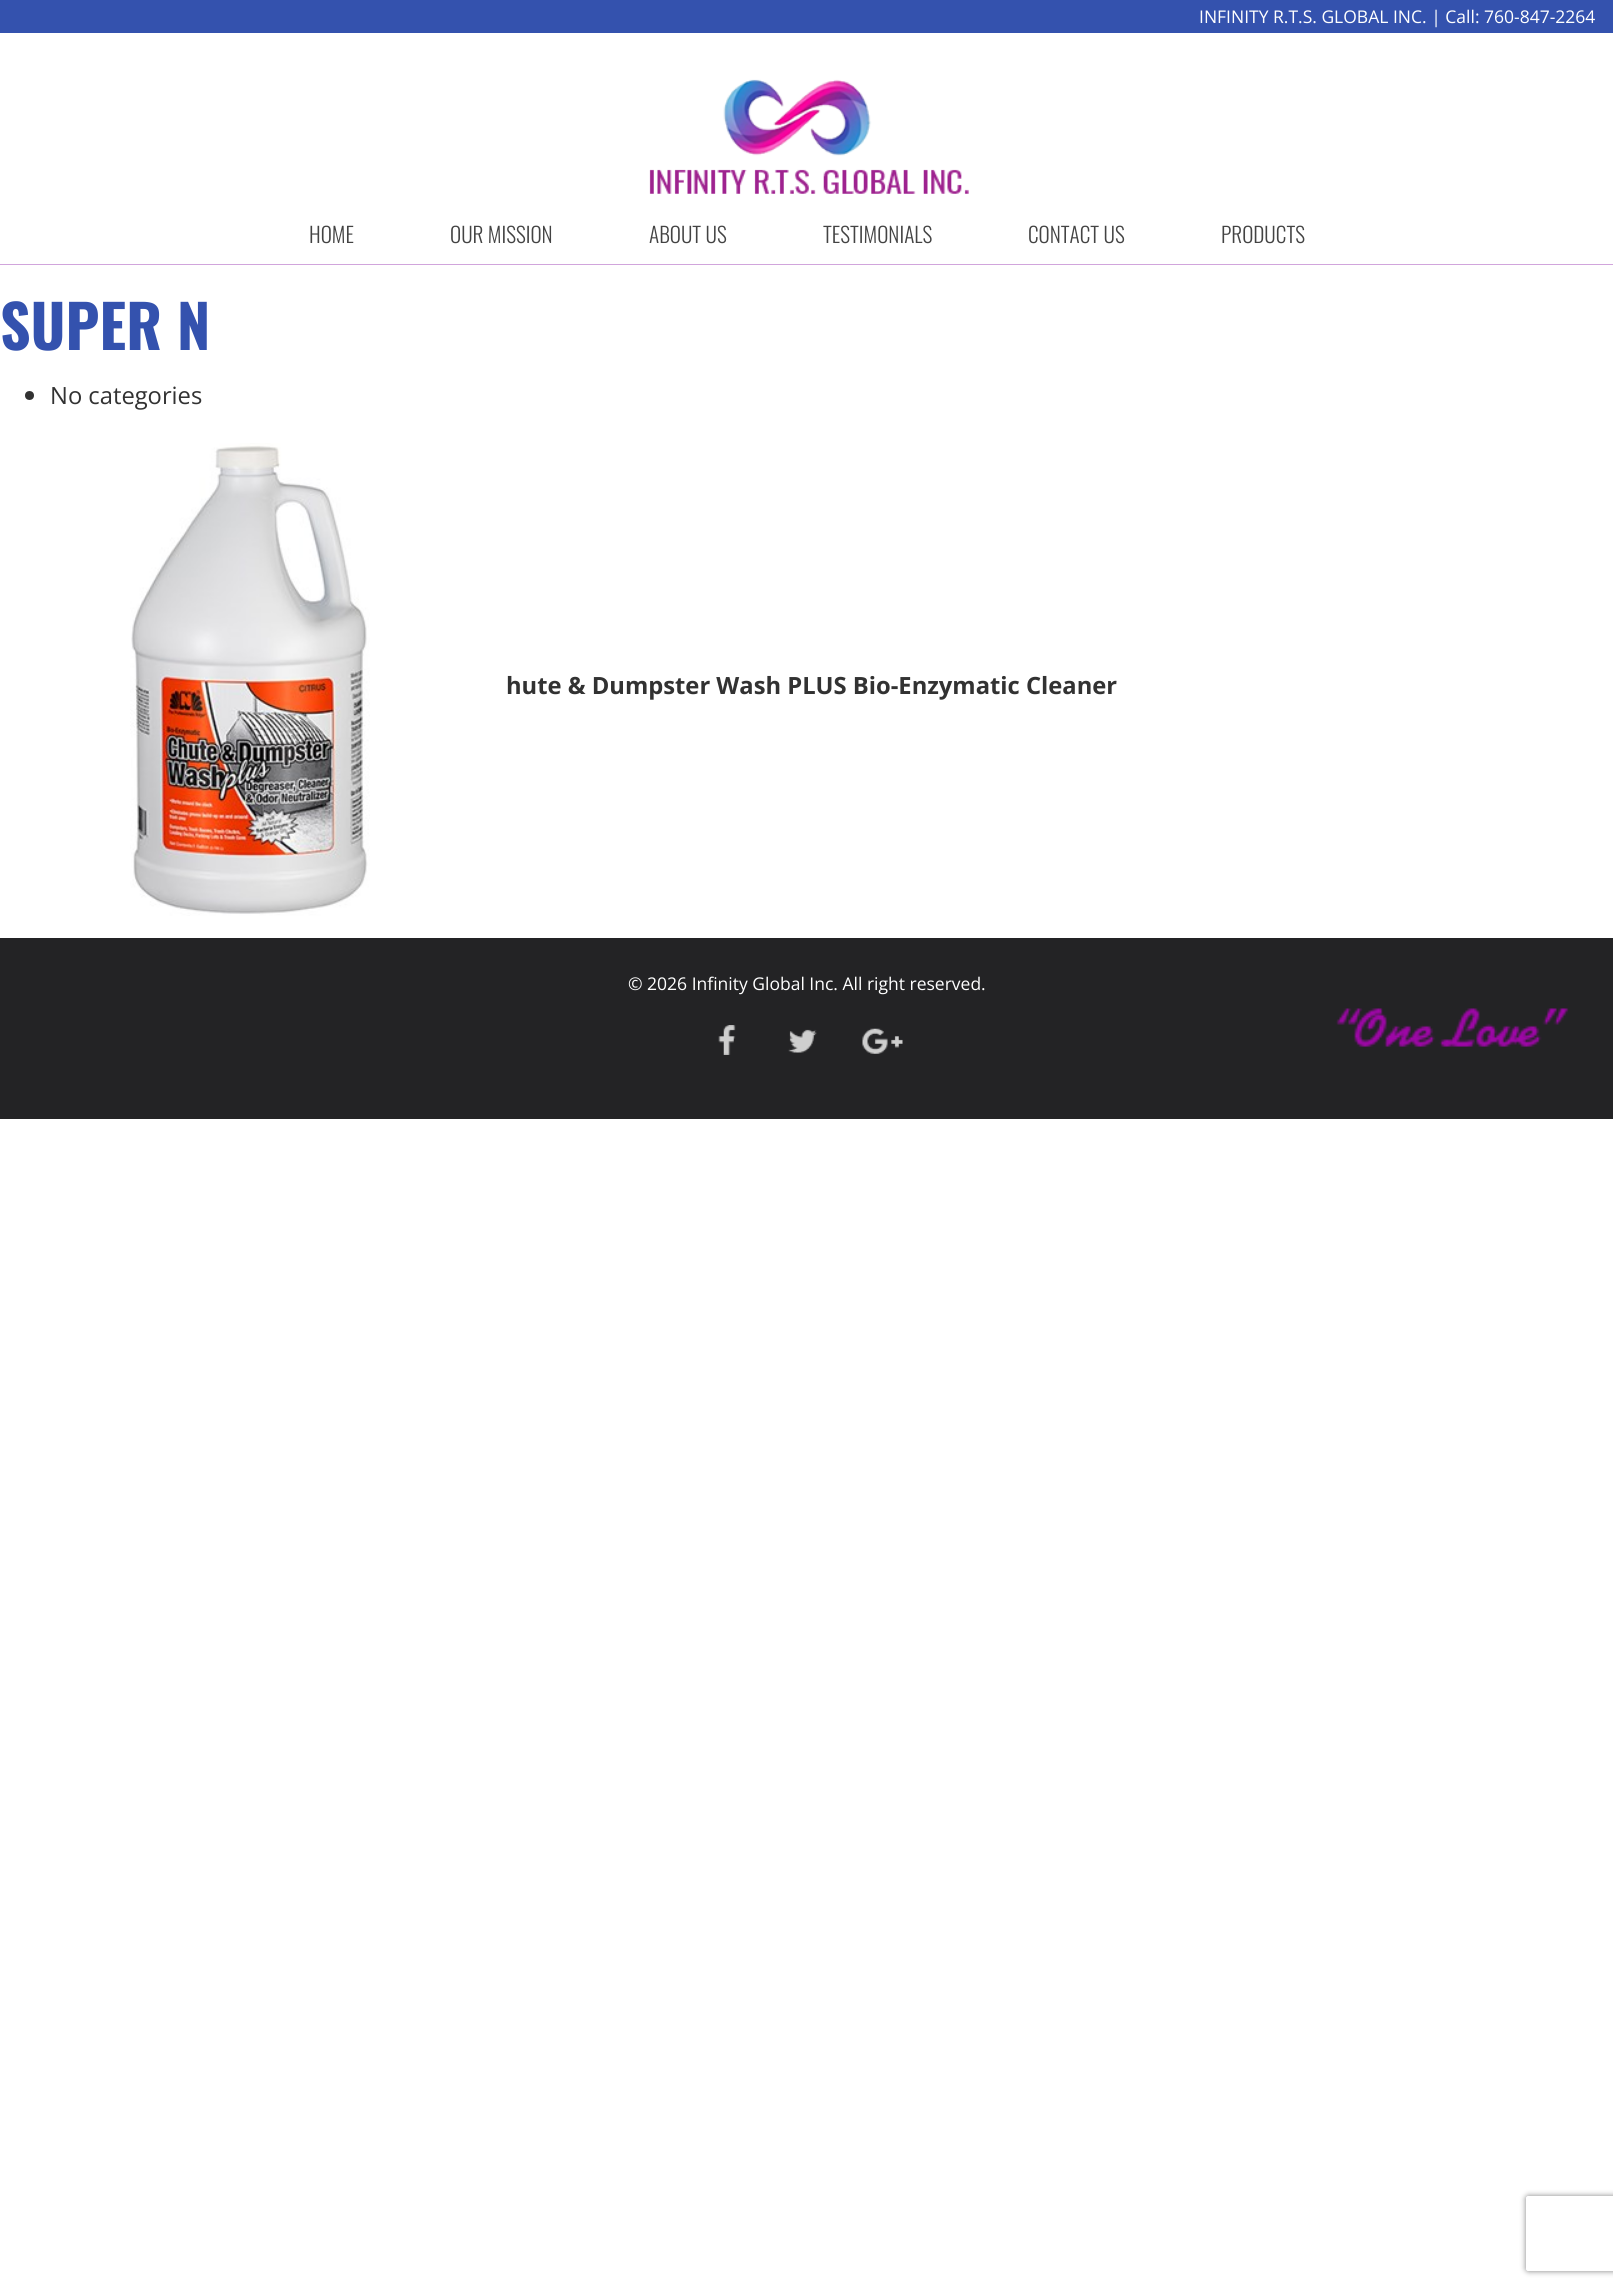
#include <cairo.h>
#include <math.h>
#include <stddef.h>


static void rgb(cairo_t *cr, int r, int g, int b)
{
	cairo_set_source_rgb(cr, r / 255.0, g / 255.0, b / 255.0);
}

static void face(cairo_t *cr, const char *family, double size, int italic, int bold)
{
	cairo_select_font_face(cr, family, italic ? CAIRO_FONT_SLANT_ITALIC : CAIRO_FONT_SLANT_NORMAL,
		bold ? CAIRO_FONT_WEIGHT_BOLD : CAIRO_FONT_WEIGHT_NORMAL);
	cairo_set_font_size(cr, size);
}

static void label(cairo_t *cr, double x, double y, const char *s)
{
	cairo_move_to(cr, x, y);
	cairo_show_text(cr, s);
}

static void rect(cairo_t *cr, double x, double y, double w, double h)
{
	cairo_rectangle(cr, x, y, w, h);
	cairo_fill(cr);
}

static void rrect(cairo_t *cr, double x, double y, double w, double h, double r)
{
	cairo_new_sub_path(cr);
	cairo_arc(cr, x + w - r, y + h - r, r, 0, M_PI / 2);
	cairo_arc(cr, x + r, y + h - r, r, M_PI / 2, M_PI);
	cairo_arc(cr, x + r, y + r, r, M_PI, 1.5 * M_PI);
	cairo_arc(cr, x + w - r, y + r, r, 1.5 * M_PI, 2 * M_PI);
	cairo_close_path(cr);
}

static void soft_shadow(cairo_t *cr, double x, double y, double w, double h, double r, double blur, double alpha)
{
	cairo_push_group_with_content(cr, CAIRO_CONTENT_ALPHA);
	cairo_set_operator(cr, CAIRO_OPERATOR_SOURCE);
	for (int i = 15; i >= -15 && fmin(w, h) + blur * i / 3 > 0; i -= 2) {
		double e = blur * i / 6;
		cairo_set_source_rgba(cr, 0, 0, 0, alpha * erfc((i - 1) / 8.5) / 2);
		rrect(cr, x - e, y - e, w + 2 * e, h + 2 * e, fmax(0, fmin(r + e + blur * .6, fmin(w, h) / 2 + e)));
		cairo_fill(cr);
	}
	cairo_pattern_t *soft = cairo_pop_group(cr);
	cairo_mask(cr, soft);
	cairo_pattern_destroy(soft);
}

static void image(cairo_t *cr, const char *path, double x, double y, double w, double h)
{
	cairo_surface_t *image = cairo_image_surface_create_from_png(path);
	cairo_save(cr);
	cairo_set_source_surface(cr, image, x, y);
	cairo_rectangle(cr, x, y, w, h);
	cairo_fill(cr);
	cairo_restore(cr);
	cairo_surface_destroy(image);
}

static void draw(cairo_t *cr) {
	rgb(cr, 255, 255, 255);
	cairo_paint(cr);
	rgb(cr, 52, 82, 174);
	rect(cr, 0, 0, 1613, 33);
	face(cr, "Open Sans", 17.5, 0, 0);
	rgb(cr, 255, 255, 255);
	label(cr, 1199, 23, "INFINITY R.T.S. GLOBAL INC. | Call: 760-847-2264");
	rgb(cr, 209, 165, 220);
	rect(cr, 0, 264, 1613, 1);
	image(cr, "image0.png", 649, 79, 320, 115);
	face(cr, "Oswald Light", 21.25, 0, 0);
	rgb(cr, 67, 67, 67);
	label(cr, 309, 243, "HOME");
	label(cr, 450, 243, "OUR MISSION");
	label(cr, 649, 243, "ABOUT US");
	label(cr, 823, 243, "TESTIMONIALS");
	label(cr, 1028, 243, "CONTACT US");
	label(cr, 1221, 243, "PRODUCTS");
	face(cr, "Oswald", 59.5, 0, 1);
	rgb(cr, 52, 82, 174);
	label(cr, 0, 350, "SUPER N");
	rgb(cr, 50, 50, 50);
	cairo_new_path(cr);
	cairo_arc(cr, 29.5, 395.5, 4.5, 0, 2 * M_PI);
	cairo_fill(cr);
	face(cr, "Open Sans", 23.75, 0, 0);
	label(cr, 50, 404, "No categories");
	image(cr, "image1.png", 130, 443, 240, 473);
	face(cr, "Open Sans", 23.75, 0, 1);
	label(cr, 506, 694, "hute & Dumpster Wash PLUS Bio-Enzymatic Cleaner");
	rgb(cr, 35, 35, 37);
	rect(cr, 0, 938, 1613, 181);
	face(cr, "Open Sans", 17.5, 0, 0);
	rgb(cr, 255, 255, 255);
	label(cr, 628, 990, "© 2026 Infinity Global Inc. All right reserved.");
	image(cr, "image2.png", 718, 1025, 18, 30);
	image(cr, "image3.png", 788, 1029, 29, 24);
	image(cr, "image4.png", 862, 1028, 41, 26);
	image(cr, "image5.png", 1336, 1008, 233, 39);
	cairo_save(cr);
	cairo_set_fill_rule(cr, CAIRO_FILL_RULE_EVEN_ODD);
	cairo_new_path(cr);
	cairo_move_to(cr, 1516, 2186);
	cairo_line_to(cr, 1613, 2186);
	cairo_line_to(cr, 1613, 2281);
	cairo_line_to(cr, 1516, 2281);
	cairo_close_path(cr);
	cairo_move_to(cr, 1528.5, 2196);
	cairo_line_to(cr, 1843.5, 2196);
	cairo_curve_to(cr, 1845, 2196, 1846, 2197, 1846, 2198.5);
	cairo_line_to(cr, 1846, 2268.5);
	cairo_curve_to(cr, 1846, 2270, 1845, 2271, 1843.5, 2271);
	cairo_line_to(cr, 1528.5, 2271);
	cairo_curve_to(cr, 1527, 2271, 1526, 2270, 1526, 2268.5);
	cairo_line_to(cr, 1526, 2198.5);
	cairo_curve_to(cr, 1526, 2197, 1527, 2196, 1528.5, 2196);
	cairo_close_path(cr);
	cairo_clip(cr);
	rgb(cr, 128, 128, 128);
	soft_shadow(cr, 1526, 2196, 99, 75, 2.5, 3, 1);
	cairo_restore(cr);
}

int main(void) {
	cairo_surface_t *surface = cairo_image_surface_create(CAIRO_FORMAT_RGB24, 1613, 2288);
	cairo_t *cr = cairo_create(surface);
	cairo_font_options_t *options = cairo_font_options_create();
	cairo_font_options_set_hint_metrics(options, CAIRO_HINT_METRICS_OFF);
	cairo_font_options_set_hint_style(options, CAIRO_HINT_STYLE_NONE);
	cairo_set_font_options(cr, options);
	cairo_set_miter_limit(cr, 4);
	draw(cr);
	cairo_surface_write_to_png(surface, "render.png");
	cairo_font_options_destroy(options);
	cairo_destroy(cr);
	cairo_surface_destroy(surface);
	return 0;
}
